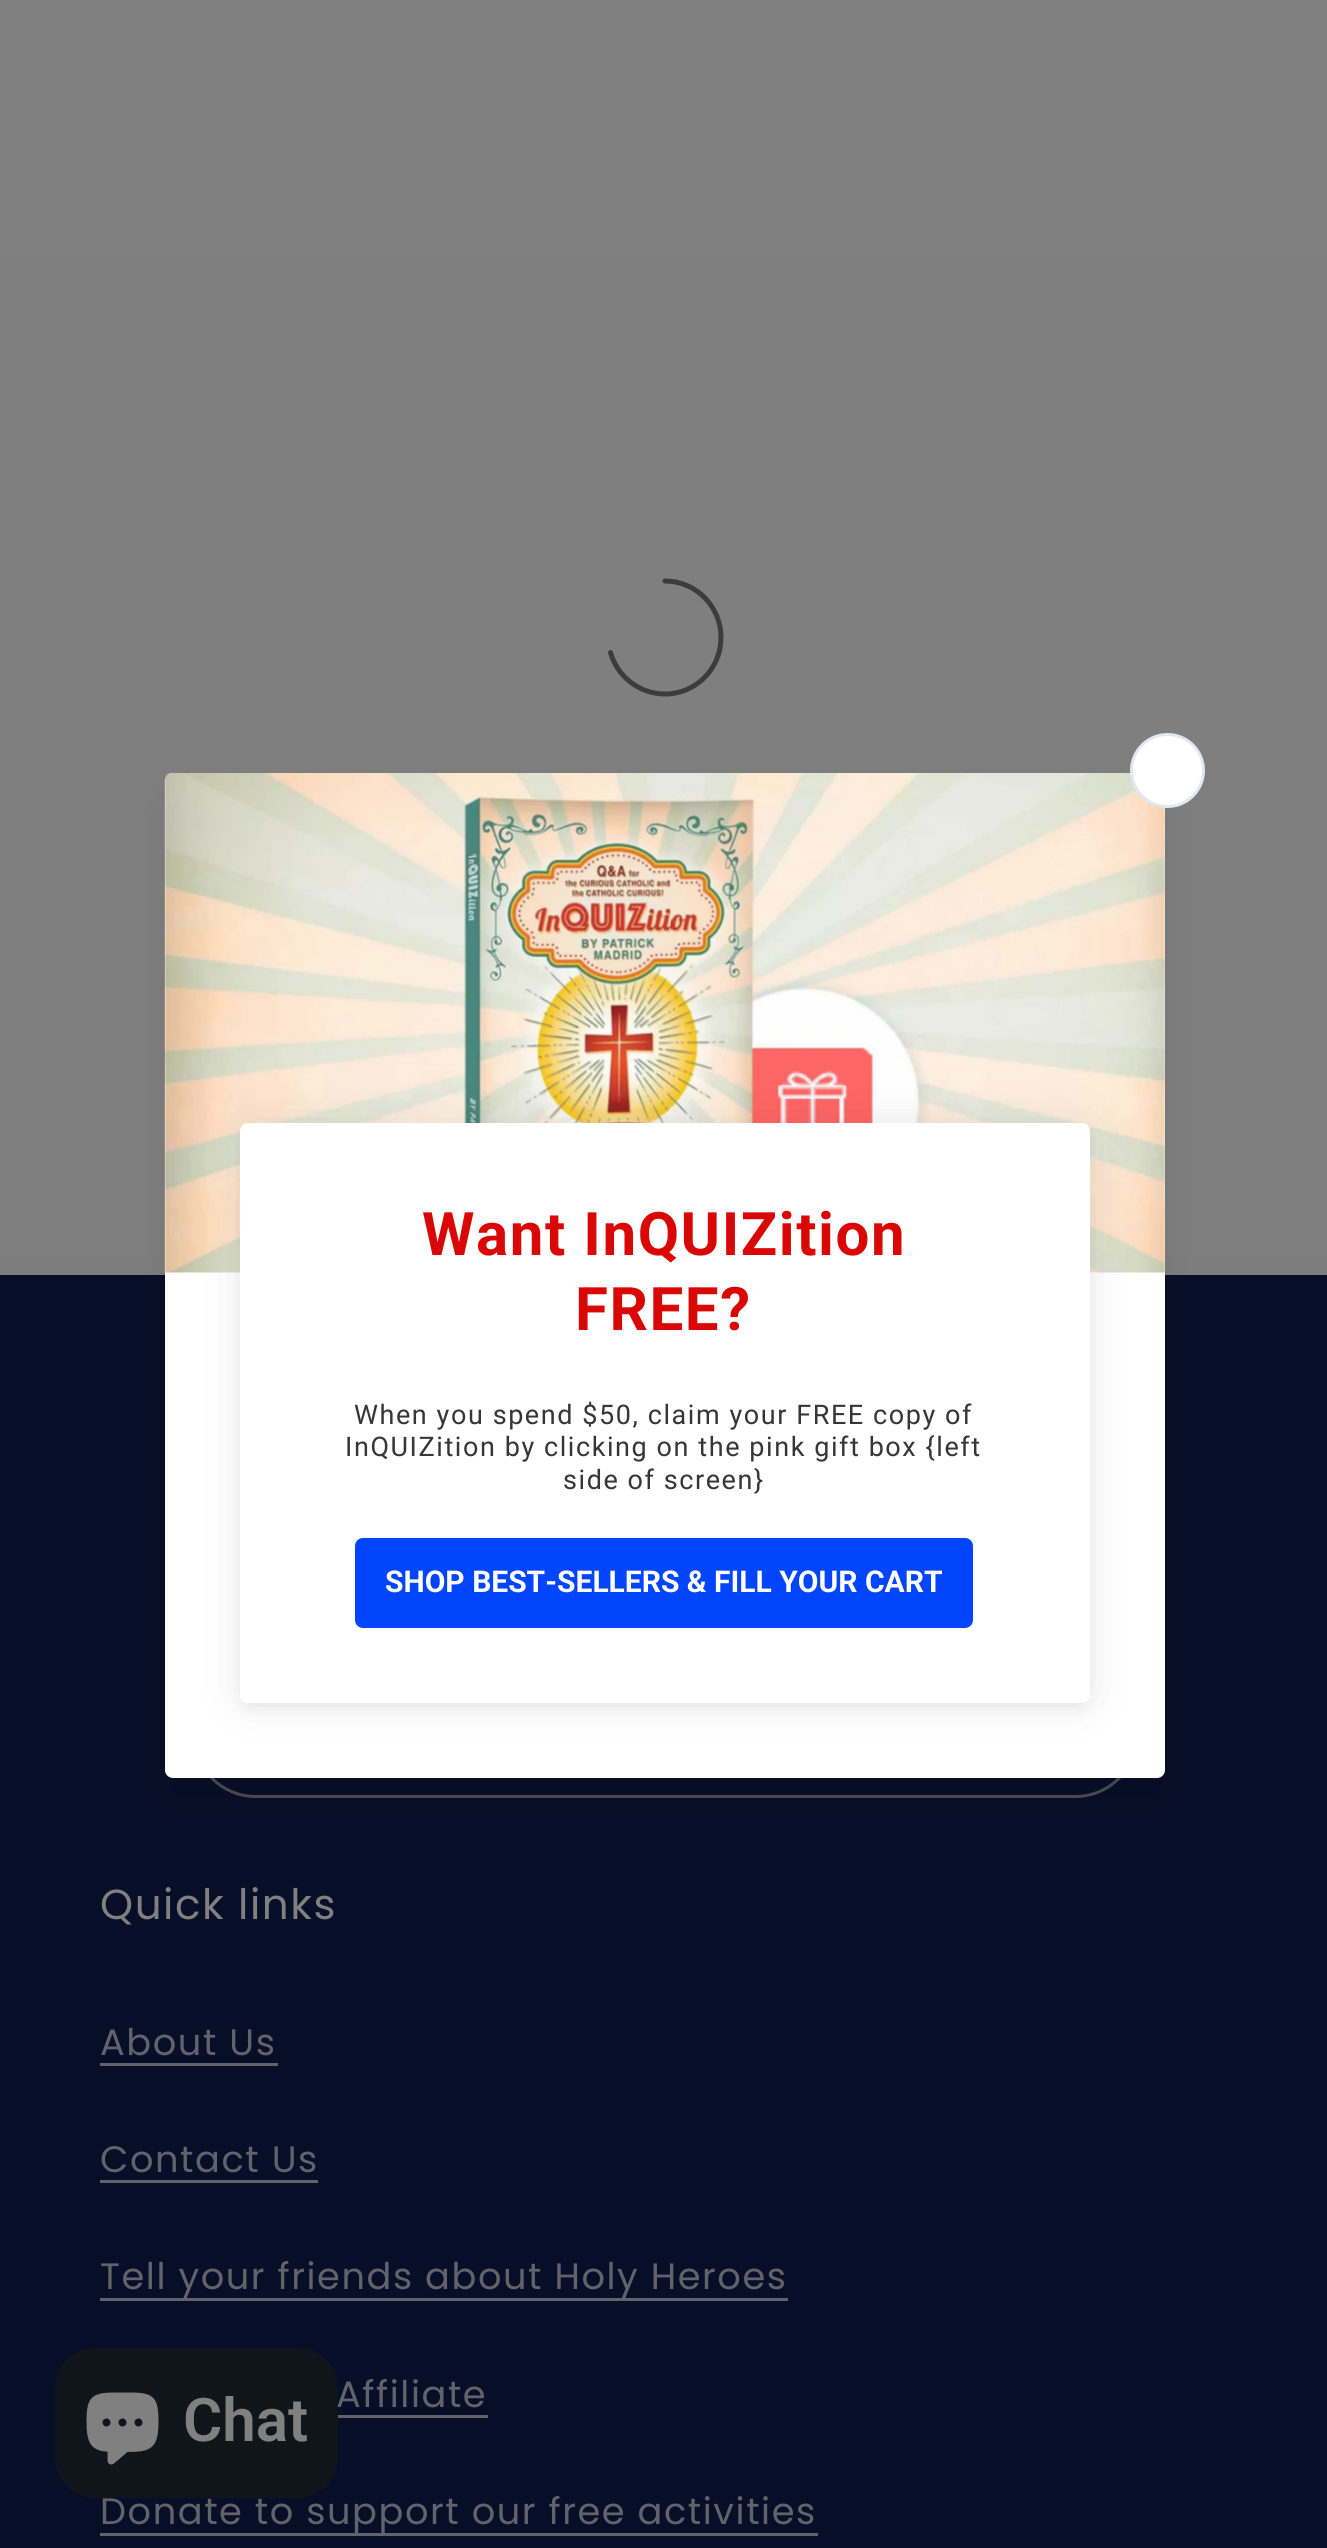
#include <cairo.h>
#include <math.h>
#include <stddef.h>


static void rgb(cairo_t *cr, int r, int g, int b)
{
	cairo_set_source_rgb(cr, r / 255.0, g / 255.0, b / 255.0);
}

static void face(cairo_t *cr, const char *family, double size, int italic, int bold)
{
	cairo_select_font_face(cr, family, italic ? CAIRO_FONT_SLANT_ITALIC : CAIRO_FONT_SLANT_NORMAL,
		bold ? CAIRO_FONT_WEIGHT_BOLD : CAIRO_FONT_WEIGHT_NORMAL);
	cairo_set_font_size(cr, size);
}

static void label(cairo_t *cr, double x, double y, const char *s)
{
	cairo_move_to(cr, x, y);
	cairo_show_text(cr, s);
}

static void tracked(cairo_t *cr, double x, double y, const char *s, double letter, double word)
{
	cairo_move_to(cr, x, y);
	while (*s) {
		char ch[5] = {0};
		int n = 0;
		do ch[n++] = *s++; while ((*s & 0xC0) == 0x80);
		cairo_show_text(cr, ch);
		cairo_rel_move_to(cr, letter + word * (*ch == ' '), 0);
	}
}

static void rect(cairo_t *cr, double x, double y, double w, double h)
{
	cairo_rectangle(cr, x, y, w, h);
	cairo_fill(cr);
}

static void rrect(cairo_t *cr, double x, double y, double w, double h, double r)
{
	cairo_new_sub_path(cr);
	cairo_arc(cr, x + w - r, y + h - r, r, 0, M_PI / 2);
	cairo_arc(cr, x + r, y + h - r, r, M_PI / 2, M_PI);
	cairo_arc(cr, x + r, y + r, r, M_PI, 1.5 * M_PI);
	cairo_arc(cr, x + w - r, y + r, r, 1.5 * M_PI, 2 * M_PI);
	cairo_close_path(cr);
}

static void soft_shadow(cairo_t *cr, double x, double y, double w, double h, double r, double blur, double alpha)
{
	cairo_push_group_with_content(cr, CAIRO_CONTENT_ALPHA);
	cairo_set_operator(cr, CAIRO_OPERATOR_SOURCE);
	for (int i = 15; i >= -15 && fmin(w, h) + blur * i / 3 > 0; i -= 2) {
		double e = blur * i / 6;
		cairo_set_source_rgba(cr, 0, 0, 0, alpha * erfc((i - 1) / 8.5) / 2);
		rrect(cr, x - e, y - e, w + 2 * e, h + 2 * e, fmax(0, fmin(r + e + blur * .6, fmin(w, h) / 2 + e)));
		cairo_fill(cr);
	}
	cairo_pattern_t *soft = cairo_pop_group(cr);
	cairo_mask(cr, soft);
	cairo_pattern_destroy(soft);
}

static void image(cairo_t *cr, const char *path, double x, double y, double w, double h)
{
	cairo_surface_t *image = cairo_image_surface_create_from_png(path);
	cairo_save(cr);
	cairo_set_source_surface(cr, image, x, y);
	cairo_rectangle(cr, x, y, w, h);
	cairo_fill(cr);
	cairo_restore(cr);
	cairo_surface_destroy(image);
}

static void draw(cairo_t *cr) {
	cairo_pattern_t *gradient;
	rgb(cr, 255, 255, 255);
	cairo_paint(cr);
	gradient = cairo_pattern_create_linear(664, 0, 664, 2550);
	cairo_pattern_add_color_stop_rgba(gradient, 0, 0.502, 0.502, 0.502, 1);
	cairo_pattern_add_color_stop_rgba(gradient, 1, 0.482, 0.482, 0.482, 1);
	cairo_set_source(cr, gradient);
	cairo_pattern_destroy(gradient);
	rect(cr, 0, 0, 1327, 1275);
	cairo_new_path(cr);
	cairo_move_to(cr, 665, 581);
	cairo_curve_to(cr, 696, 581, 721, 606.5, 721, 637.5);
	cairo_curve_to(cr, 721, 668.5, 696, 694, 665, 694);
	cairo_curve_to(cr, 639, 694, 617, 676, 610.5, 652.5);
	rgb(cr, 60, 60, 60);
	cairo_set_line_width(cr, 5);
	cairo_set_line_cap(cr, CAIRO_LINE_CAP_ROUND);
	cairo_stroke(cr);
	rgb(cr, 7, 14, 39);
	rect(cr, 0, 1275, 1327, 1273);
	rrect(cr, 194.5, 1674.5, 942, 122, 61);
	rgb(cr, 74, 76, 88);
	cairo_set_line_width(cr, 3);
	cairo_set_line_cap(cr, CAIRO_LINE_CAP_BUTT);
	cairo_stroke(cr);
	rgb(cr, 0, 0, 0);
	soft_shadow(cr, 173, 805, 985, 990, 0, 19, 0.1);
	rgb(cr, 255, 255, 255);
	rrect(cr, 165, 773, 1000, 1005, 8);
	cairo_fill(cr);
	image(cr, "image0.png", 164, 773, 1001, 500);
	cairo_arc(cr, 1167.5, 770.5, 36, 0, 2 * M_PI);
	cairo_fill_preserve(cr);
	rgb(cr, 226, 232, 240);
	cairo_stroke(cr);
	rgb(cr, 0, 0, 0);
	soft_shadow(cr, 245, 1138, 840, 570, 2.5, 7.5, 0.05);
	soft_shadow(cr, 248, 1130, 835, 565, 0, 25, 0.12);
	rgb(cr, 255, 255, 255);
	rrect(cr, 240, 1123, 850, 580, 8);
	cairo_fill(cr);
	face(cr, "Roboto", 60, 0, 1);
	rgb(cr, 218, 7, 7);
	tracked(cr, 422, 1255, "Want InQUIZition", 1.57, 0);
	tracked(cr, 575, 1330, "FREE?", 1.57, 0);
	face(cr, "Roboto", 27, 0, 0);
	rgb(cr, 54, 54, 54);
	tracked(cr, 354, 1424, "When you spend $50, claim your FREE copy of", 1.57, 0);
	tracked(cr, 345, 1456, "InQUIZition by clicking on the pink gift box {left", 1.57, 0);
	tracked(cr, 563, 1489, "side of screen}", 1.57, 0);
	rgb(cr, 3, 69, 252);
	rrect(cr, 355, 1538, 618, 90, 8);
	cairo_fill(cr);
	face(cr, "Roboto", 30, 0, 1);
	rgb(cr, 255, 255, 255);
	label(cr, 385, 1592, "SHOP BEST-SELLERS & FILL YOUR CART");
	face(cr, "Poppins", 42, 0, 0);
	rgb(cr, 128, 128, 128);
	tracked(cr, 100, 1919, "Quick links", 1.57, 0);
	face(cr, "Poppins", 36.75, 0, 0);
	rgb(cr, 98, 99, 106);
	tracked(cr, 100, 2055, "About Us", 1.57, 0);
	rect(cr, 100, 2063, 178, 3);
	tracked(cr, 100, 2172, "Contact Us", 1.57, 0);
	rect(cr, 100, 2180, 218, 3);
	rect(cr, 100, 2298, 688, 3);
	tracked(cr, 100, 2289, "Tell your friends about Holy Heroes", 1.57, 0);
	tracked(cr, 336, 2407, "Affiliate", 1.57, 0);
	rect(cr, 338, 2415, 150, 3);
	rect(cr, 100, 2533, 718, 3);
	tracked(cr, 100, 2524, "Donate to support our free activities", 1.57, 0);
	rgb(cr, 16, 21, 27);
	rrect(cr, 55, 2348, 283, 150, 40);
	cairo_fill(cr);
	image(cr, "image1.png", 86, 2392, 73, 73);
	face(cr, "Roboto SemiBold", 60, 0, 0);
	rgb(cr, 128, 128, 128);
	label(cr, 183, 2441, "Chat");
}

int main(void) {
	cairo_surface_t *surface = cairo_image_surface_create(CAIRO_FORMAT_RGB24, 1327, 2548);
	cairo_t *cr = cairo_create(surface);
	cairo_font_options_t *options = cairo_font_options_create();
	cairo_font_options_set_hint_metrics(options, CAIRO_HINT_METRICS_OFF);
	cairo_font_options_set_hint_style(options, CAIRO_HINT_STYLE_NONE);
	cairo_set_font_options(cr, options);
	cairo_set_miter_limit(cr, 4);
	draw(cr);
	cairo_surface_write_to_png(surface, "render.png");
	cairo_font_options_destroy(options);
	cairo_destroy(cr);
	cairo_surface_destroy(surface);
	return 0;
}
